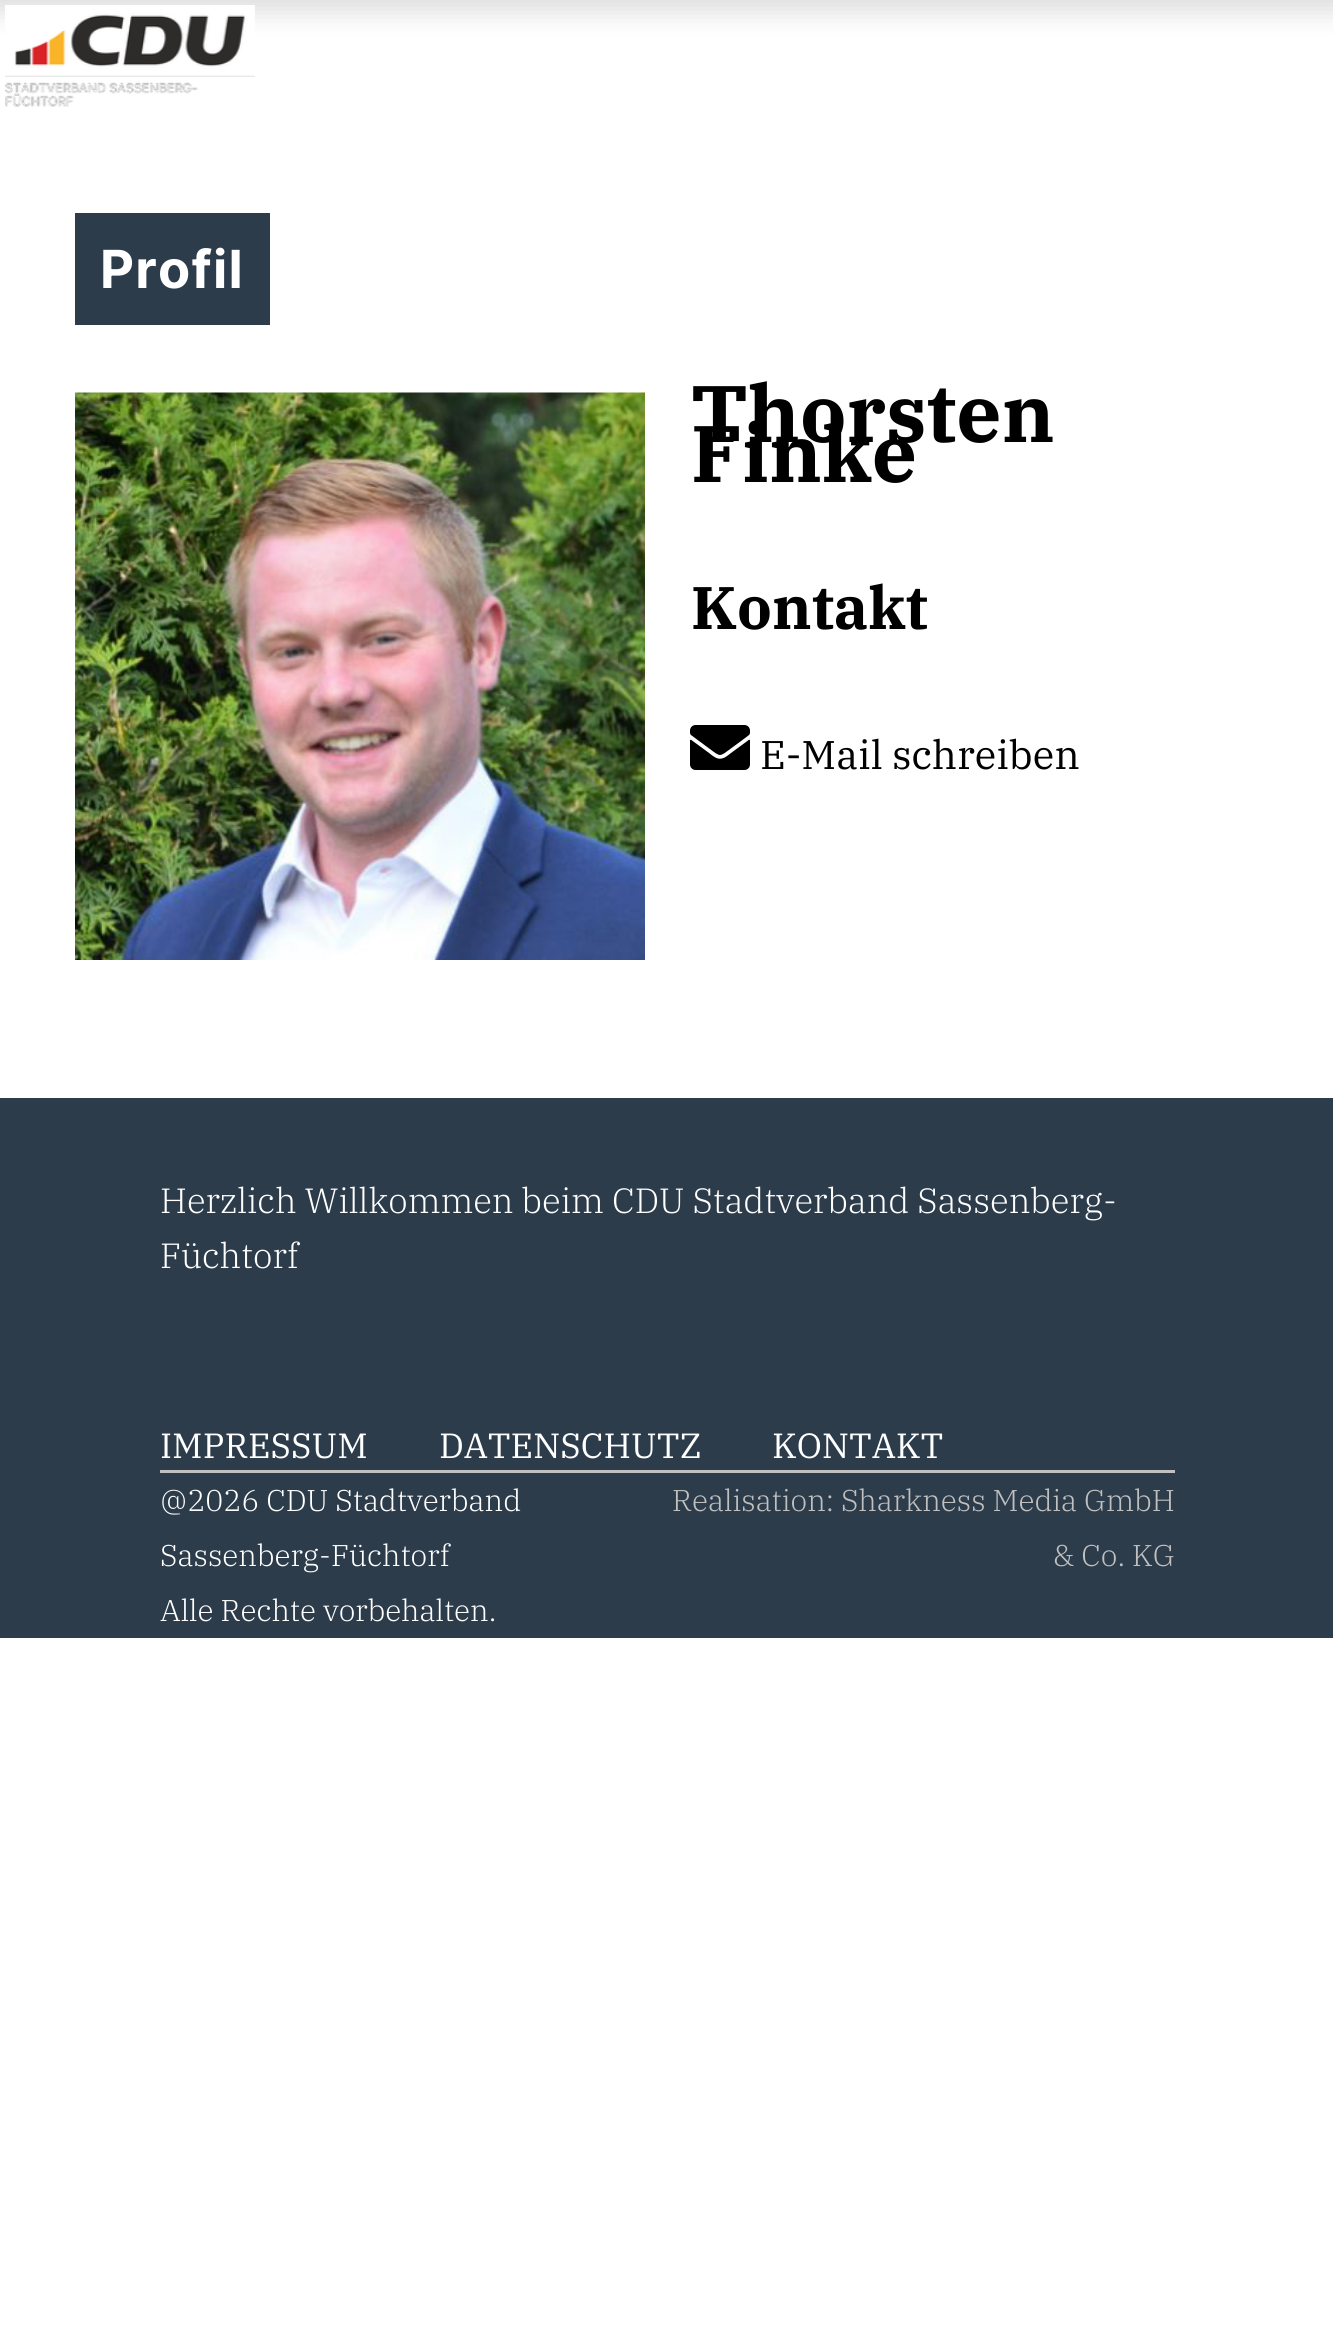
#include <cairo.h>
#include <math.h>
#include <stddef.h>


static void rgb(cairo_t *cr, int r, int g, int b)
{
	cairo_set_source_rgb(cr, r / 255.0, g / 255.0, b / 255.0);
}

static void face(cairo_t *cr, const char *family, double size, int italic, int bold)
{
	cairo_select_font_face(cr, family, italic ? CAIRO_FONT_SLANT_ITALIC : CAIRO_FONT_SLANT_NORMAL,
		bold ? CAIRO_FONT_WEIGHT_BOLD : CAIRO_FONT_WEIGHT_NORMAL);
	cairo_set_font_size(cr, size);
}

static void label(cairo_t *cr, double x, double y, const char *s)
{
	cairo_move_to(cr, x, y);
	cairo_show_text(cr, s);
}

static void tracked(cairo_t *cr, double x, double y, const char *s, double letter, double word)
{
	cairo_move_to(cr, x, y);
	while (*s) {
		char ch[5] = {0};
		int n = 0;
		do ch[n++] = *s++; while ((*s & 0xC0) == 0x80);
		cairo_show_text(cr, ch);
		cairo_rel_move_to(cr, letter + word * (*ch == ' '), 0);
	}
}

static void rect(cairo_t *cr, double x, double y, double w, double h)
{
	cairo_rectangle(cr, x, y, w, h);
	cairo_fill(cr);
}

static void rrect(cairo_t *cr, double x, double y, double w, double h, double r)
{
	cairo_new_sub_path(cr);
	cairo_arc(cr, x + w - r, y + h - r, r, 0, M_PI / 2);
	cairo_arc(cr, x + r, y + h - r, r, M_PI / 2, M_PI);
	cairo_arc(cr, x + r, y + r, r, M_PI, 1.5 * M_PI);
	cairo_arc(cr, x + w - r, y + r, r, 1.5 * M_PI, 2 * M_PI);
	cairo_close_path(cr);
}

static void soft_shadow(cairo_t *cr, double x, double y, double w, double h, double r, double blur, double alpha)
{
	cairo_push_group_with_content(cr, CAIRO_CONTENT_ALPHA);
	cairo_set_operator(cr, CAIRO_OPERATOR_SOURCE);
	for (int i = 15; i >= -15 && fmin(w, h) + blur * i / 3 > 0; i -= 2) {
		double e = blur * i / 6;
		cairo_set_source_rgba(cr, 0, 0, 0, alpha * erfc((i - 1) / 8.5) / 2);
		rrect(cr, x - e, y - e, w + 2 * e, h + 2 * e, fmax(0, fmin(r + e + blur * .6, fmin(w, h) / 2 + e)));
		cairo_fill(cr);
	}
	cairo_pattern_t *soft = cairo_pop_group(cr);
	cairo_mask(cr, soft);
	cairo_pattern_destroy(soft);
}

static void image(cairo_t *cr, const char *path, double x, double y, double w, double h)
{
	cairo_surface_t *image = cairo_image_surface_create_from_png(path);
	cairo_save(cr);
	cairo_set_source_surface(cr, image, x, y);
	cairo_rectangle(cr, x, y, w, h);
	cairo_fill(cr);
	cairo_restore(cr);
	cairo_surface_destroy(image);
}

static void draw(cairo_t *cr) {
	rgb(cr, 255, 255, 255);
	cairo_paint(cr);
	rgb(cr, 0, 0, 0);
	soft_shadow(cr, -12, -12, 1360, 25, 0, 12.5, 0.13);
	image(cr, "image0.png", 5, 5, 250, 102);
	rgb(cr, 45, 60, 75);
	rect(cr, 75, 213, 195, 112);
	face(cr, "Inter", 52.5, 0, 1);
	rgb(cr, 255, 255, 255);
	tracked(cr, 100, 288, "Profil", 1.25, 0);
	image(cr, "image1.png", 75, 392, 570, 568);
	face(cr, "IBM Plex Serif", 80, 0, 1);
	rgb(cr, 0, 0, 0);
	label(cr, 691, 442, "Thorsten");
	label(cr, 691, 482, "Finke");
	face(cr, "IBM Plex Serif", 60, 0, 1);
	label(cr, 691, 629, "Kontakt");
	image(cr, "image2.png", 690, 725, 60, 45);
	face(cr, "IBM Plex Serif", 40, 0, 0);
	label(cr, 760, 769, "E-Mail schreiben");
	rgb(cr, 45, 60, 75);
	rect(cr, 0, 1098, 1333, 540);
	face(cr, "IBM Plex Serif Light", 35, 0, 0);
	rgb(cr, 255, 255, 255);
	label(cr, 160, 1213, "Herzlich Willkommen beim CDU Stadtverband Sassenberg-");
	label(cr, 160, 1268, "Füchtorf");
	face(cr, "IBM Plex Serif", 35, 0, 0);
	label(cr, 160, 1458, "IMPRESSUM");
	label(cr, 439, 1458, "DATENSCHUTZ");
	label(cr, 772, 1458, "KONTAKT");
	rgb(cr, 192, 192, 192);
	rect(cr, 160, 1470, 1015, 3);
	face(cr, "IBM Plex Serif Light", 30, 0, 0);
	rgb(cr, 255, 255, 255);
	label(cr, 160, 1511, "@2026 CDU Stadtverband");
	label(cr, 160, 1566, "Sassenberg-Füchtorf");
	label(cr, 160, 1621, "Alle Rechte vorbehalten.");
	rgb(cr, 192, 192, 192);
	label(cr, 672, 1511, "Realisation: Sharkness Media GmbH");
	label(cr, 1053, 1566, "& Co. KG");
}

int main(void) {
	cairo_surface_t *surface = cairo_image_surface_create(CAIRO_FORMAT_RGB24, 1333, 2343);
	cairo_t *cr = cairo_create(surface);
	cairo_font_options_t *options = cairo_font_options_create();
	cairo_font_options_set_hint_metrics(options, CAIRO_HINT_METRICS_OFF);
	cairo_font_options_set_hint_style(options, CAIRO_HINT_STYLE_NONE);
	cairo_set_font_options(cr, options);
	cairo_set_miter_limit(cr, 4);
	draw(cr);
	cairo_surface_write_to_png(surface, "render.png");
	cairo_font_options_destroy(options);
	cairo_destroy(cr);
	cairo_surface_destroy(surface);
	return 0;
}
